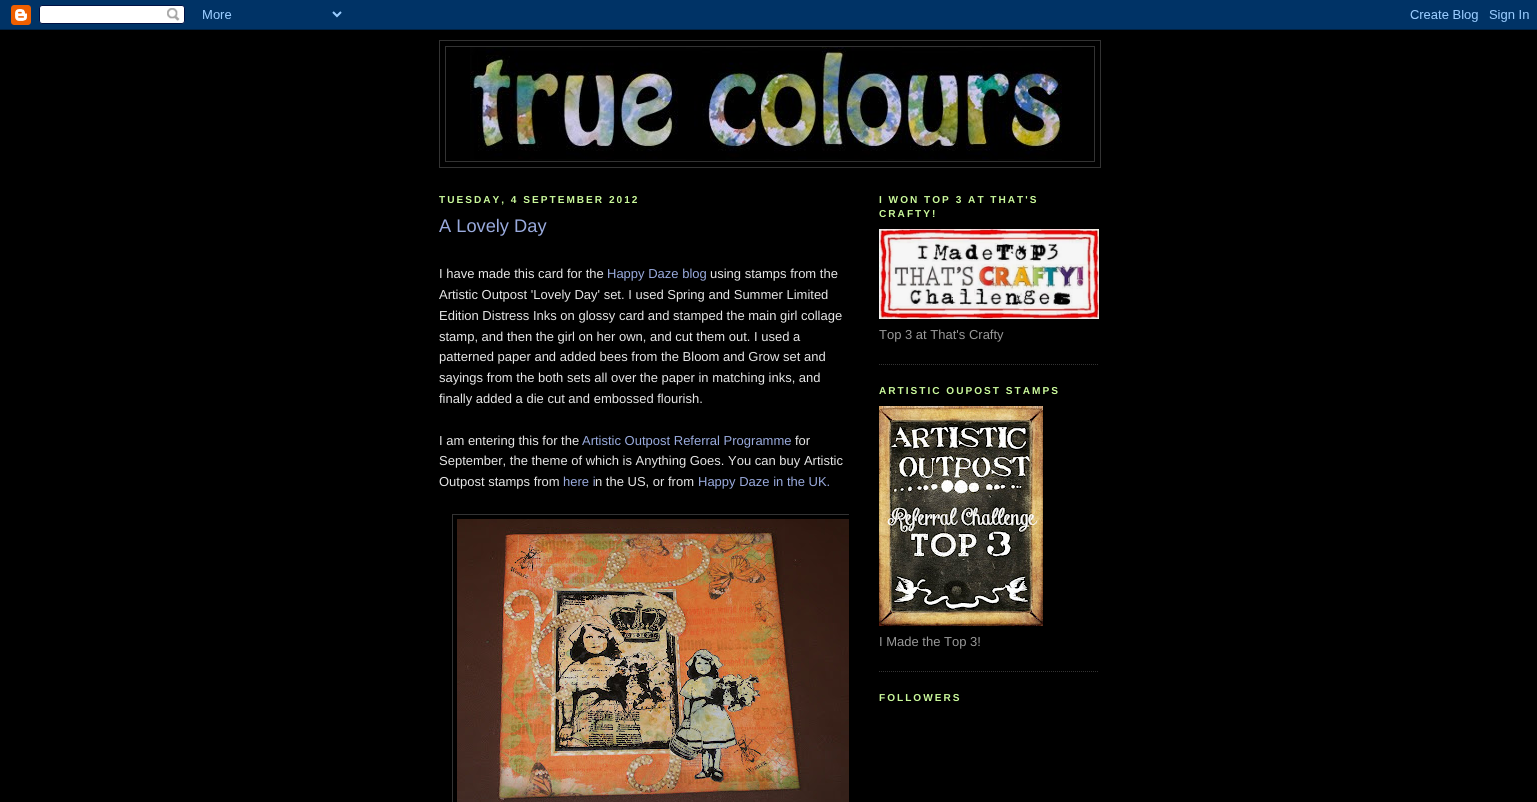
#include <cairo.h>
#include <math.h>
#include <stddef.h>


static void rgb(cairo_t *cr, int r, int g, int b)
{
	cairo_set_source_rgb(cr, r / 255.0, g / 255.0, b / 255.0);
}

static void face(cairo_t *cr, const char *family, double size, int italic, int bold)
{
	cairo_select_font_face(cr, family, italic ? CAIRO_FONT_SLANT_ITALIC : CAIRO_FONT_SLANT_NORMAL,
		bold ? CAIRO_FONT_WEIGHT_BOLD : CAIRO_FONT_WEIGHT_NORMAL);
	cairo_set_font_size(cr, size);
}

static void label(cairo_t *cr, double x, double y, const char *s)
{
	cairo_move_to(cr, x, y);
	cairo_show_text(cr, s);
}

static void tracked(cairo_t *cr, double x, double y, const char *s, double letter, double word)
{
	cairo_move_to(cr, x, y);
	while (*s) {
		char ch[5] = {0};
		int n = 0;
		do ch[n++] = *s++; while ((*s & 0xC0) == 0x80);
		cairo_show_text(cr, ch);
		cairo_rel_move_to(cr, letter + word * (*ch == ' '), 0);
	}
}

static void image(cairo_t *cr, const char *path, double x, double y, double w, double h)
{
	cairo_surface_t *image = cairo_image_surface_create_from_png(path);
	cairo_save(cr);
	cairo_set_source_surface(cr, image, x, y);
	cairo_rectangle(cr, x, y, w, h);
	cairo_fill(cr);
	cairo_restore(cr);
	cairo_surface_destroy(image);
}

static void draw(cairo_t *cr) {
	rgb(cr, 0, 0, 0);
	cairo_paint(cr);
	image(cr, "image0.png", 0, 0, 1537, 30);
	cairo_rectangle(cr, 439.5, 40.5, 661, 127);
	rgb(cr, 51, 51, 51);
	cairo_set_line_width(cr, 1);
	cairo_stroke(cr);
	cairo_rectangle(cr, 445.5, 46.5, 649, 115);
	cairo_stroke(cr);
	image(cr, "image1.png", 470, 47, 592, 113);
	face(cr, "Liberation Sans", 10.1, 0, 1);
	rgb(cr, 202, 249, 155);
	tracked(cr, 439, 203, "TUESDAY, 4 SEPTEMBER 2012", 2, 0);
	face(cr, "Liberation Sans", 18.25, 0, 0);
	rgb(cr, 153, 170, 221);
	label(cr, 439, 232, "A Lovely Day");
	face(cr, "Liberation Sans", 13, 0, 0);
	rgb(cr, 230, 230, 230);
	label(cr, 439, 278, "I have made this card for the");
	rgb(cr, 153, 170, 221);
	label(cr, 607, 278, "Happy Daze blog");
	rgb(cr, 230, 230, 230);
	label(cr, 710, 278, "using stamps from the");
	label(cr, 439, 299, "Artistic Outpost 'Lovely Day' set. I used Spring and Summer Limited");
	label(cr, 439, 320, "Edition Distress Inks on glossy card and stamped the main girl collage");
	label(cr, 439, 341, "stamp, and then the girl on her own, and cut them out. I used a");
	label(cr, 439, 361, "patterned paper and added bees from the Bloom and Grow set and");
	label(cr, 439, 382, "sayings from the both sets all over the paper in matching inks, and");
	label(cr, 439, 403, "finally added a die cut and embossed flourish.");
	label(cr, 439, 445, "I am entering this for the");
	rgb(cr, 153, 170, 221);
	label(cr, 582, 445, "Artistic Outpost Referral Programme");
	rgb(cr, 230, 230, 230);
	label(cr, 795, 445, "for");
	label(cr, 439, 465, "September, the theme of which is Anything Goes. You can buy Artistic");
	label(cr, 439, 486, "Outpost stamps from");
	rgb(cr, 153, 170, 221);
	label(cr, 563, 486, "here i");
	rgb(cr, 230, 230, 230);
	label(cr, 595, 486, "n the US, or from");
	rgb(cr, 153, 170, 221);
	label(cr, 698, 486, "Happy Daze in the UK.");
	cairo_save(cr);
	cairo_rectangle(cr, 439, 178, 410, 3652);
	cairo_clip(cr);
	cairo_rectangle(cr, 452.5, 514.5, 409, 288);
	rgb(cr, 51, 51, 51);
	cairo_stroke(cr);
	cairo_restore(cr);
	image(cr, "image2.png", 457, 519, 392, 283);
	cairo_new_path(cr);
	cairo_move_to(cr, 879, 364.5);
	cairo_line_to(cr, 1099, 364.5);
	rgb(cr, 51, 51, 51);
	cairo_set_dash(cr, (double[]){1, 1}, 2, 0);
	cairo_stroke(cr);
	face(cr, "Liberation Sans", 10.1, 0, 1);
	rgb(cr, 202, 249, 155);
	tracked(cr, 879, 203, "I WON TOP 3 AT THAT'S", 2, 0);
	tracked(cr, 879, 217, "CRAFTY!", 2, 0);
	image(cr, "image3.png", 879, 229, 220, 90);
	face(cr, "Liberation Sans", 13, 0, 0);
	rgb(cr, 153, 153, 153);
	label(cr, 879, 339, "Top 3 at That's Crafty");
	cairo_new_path(cr);
	cairo_move_to(cr, 879, 671.5);
	cairo_line_to(cr, 1099, 671.5);
	rgb(cr, 51, 51, 51);
	cairo_stroke(cr);
	face(cr, "Liberation Sans", 10.1, 0, 1);
	rgb(cr, 202, 249, 155);
	tracked(cr, 879, 394, "ARTISTIC OUPOST STAMPS", 2, 0);
	image(cr, "image4.png", 879, 406, 164, 220);
	face(cr, "Liberation Sans", 13, 0, 0);
	rgb(cr, 153, 153, 153);
	label(cr, 879, 646, "I Made the Top 3!");
	face(cr, "Liberation Sans", 10.1, 0, 1);
	rgb(cr, 202, 249, 155);
	tracked(cr, 879, 701, "FOLLOWERS", 2, 0);
}

int main(void) {
	cairo_surface_t *surface = cairo_image_surface_create(CAIRO_FORMAT_RGB24, 1537, 802);
	cairo_t *cr = cairo_create(surface);
	cairo_font_options_t *options = cairo_font_options_create();
	cairo_font_options_set_hint_metrics(options, CAIRO_HINT_METRICS_OFF);
	cairo_font_options_set_hint_style(options, CAIRO_HINT_STYLE_NONE);
	cairo_set_font_options(cr, options);
	cairo_set_miter_limit(cr, 4);
	draw(cr);
	cairo_surface_write_to_png(surface, "render.png");
	cairo_font_options_destroy(options);
	cairo_destroy(cr);
	cairo_surface_destroy(surface);
	return 0;
}
